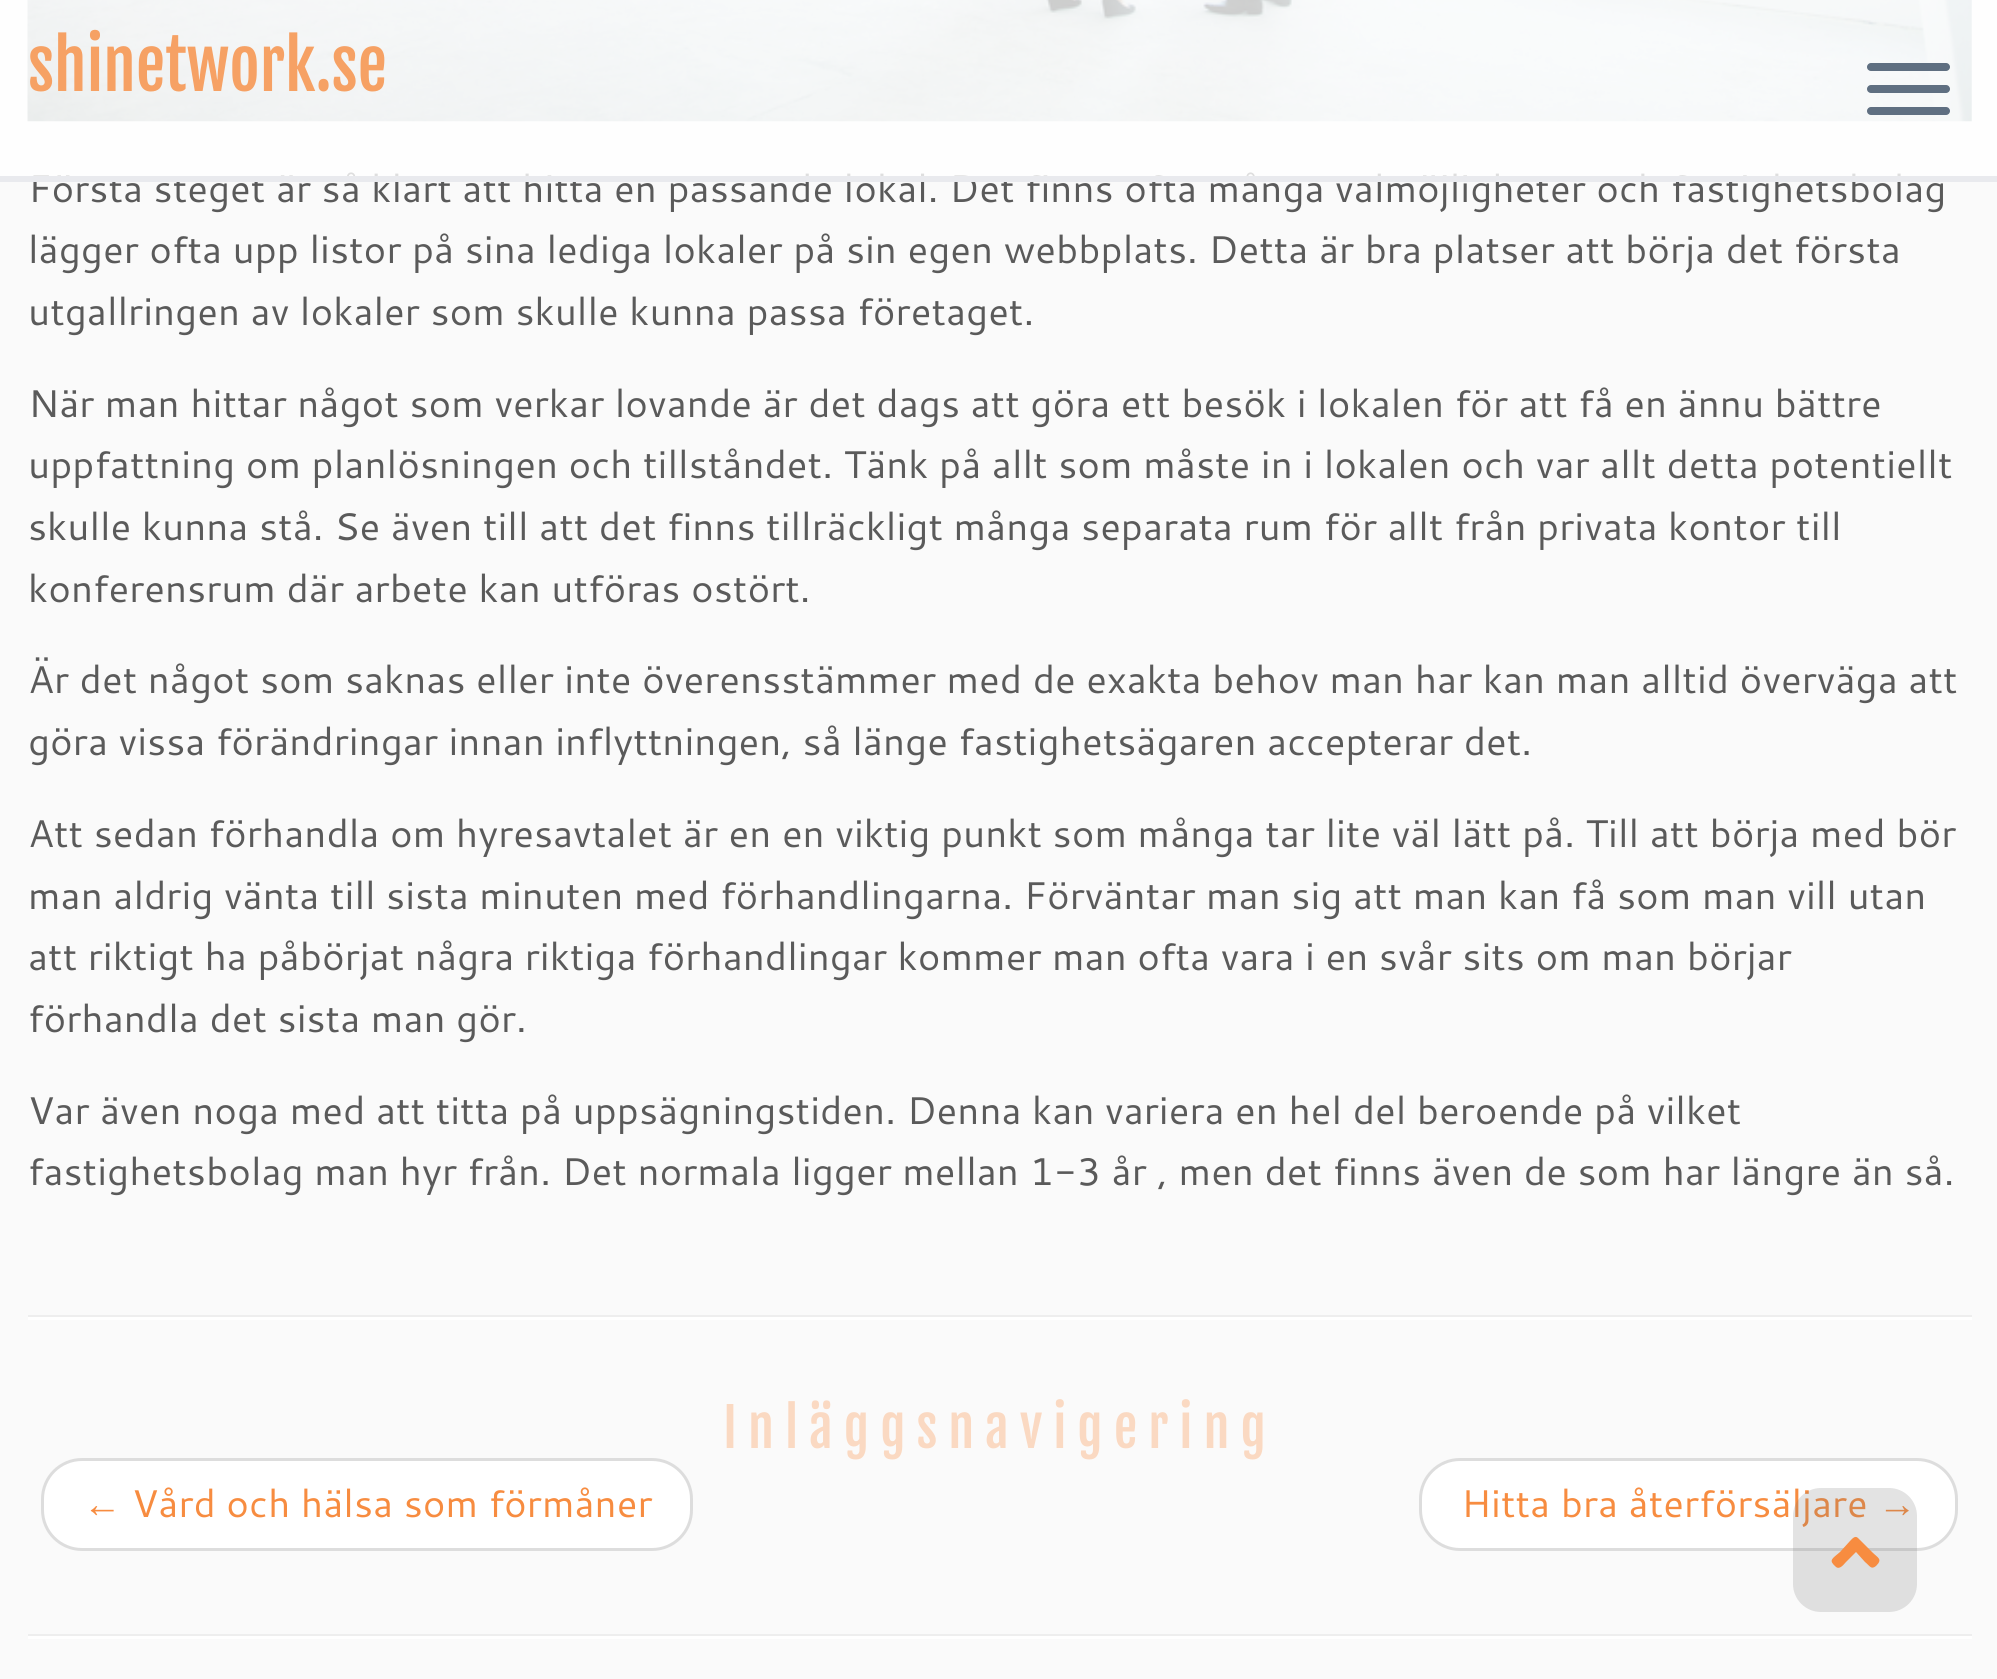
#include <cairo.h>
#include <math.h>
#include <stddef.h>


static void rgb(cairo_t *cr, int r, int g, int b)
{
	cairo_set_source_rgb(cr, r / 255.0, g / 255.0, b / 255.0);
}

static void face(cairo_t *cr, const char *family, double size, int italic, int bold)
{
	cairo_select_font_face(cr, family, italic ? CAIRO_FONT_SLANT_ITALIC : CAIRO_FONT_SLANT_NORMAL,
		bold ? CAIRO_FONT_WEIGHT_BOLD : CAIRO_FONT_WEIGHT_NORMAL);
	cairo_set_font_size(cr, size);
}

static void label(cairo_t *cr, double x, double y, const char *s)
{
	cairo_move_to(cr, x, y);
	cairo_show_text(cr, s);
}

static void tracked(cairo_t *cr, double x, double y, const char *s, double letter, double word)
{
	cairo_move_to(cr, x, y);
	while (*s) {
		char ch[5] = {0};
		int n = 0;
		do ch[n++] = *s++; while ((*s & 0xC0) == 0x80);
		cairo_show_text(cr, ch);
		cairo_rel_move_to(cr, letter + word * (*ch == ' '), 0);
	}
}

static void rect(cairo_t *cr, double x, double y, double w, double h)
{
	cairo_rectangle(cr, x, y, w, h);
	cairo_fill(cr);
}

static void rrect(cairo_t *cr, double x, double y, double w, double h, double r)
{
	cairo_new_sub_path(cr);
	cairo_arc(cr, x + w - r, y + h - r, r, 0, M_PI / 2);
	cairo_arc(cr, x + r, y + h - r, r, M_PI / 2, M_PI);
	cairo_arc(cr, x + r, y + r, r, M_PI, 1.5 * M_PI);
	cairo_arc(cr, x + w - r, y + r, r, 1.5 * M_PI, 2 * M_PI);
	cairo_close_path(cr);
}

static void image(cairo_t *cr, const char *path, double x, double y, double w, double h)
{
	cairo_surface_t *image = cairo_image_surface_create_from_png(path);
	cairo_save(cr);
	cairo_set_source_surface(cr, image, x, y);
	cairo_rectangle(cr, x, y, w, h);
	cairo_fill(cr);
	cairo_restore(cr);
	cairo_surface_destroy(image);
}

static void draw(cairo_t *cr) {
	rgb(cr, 250, 250, 250);
	cairo_paint(cr);
	image(cr, "image0.png", 27, 0, 1945, 122);
	face(cr, "Cantarell", 38.5, 0, 0);
	rgb(cr, 90, 90, 90);
	label(cr, 28, 202, "Första steget är så klart att hitta en passande lokal. Det finns ofta många valmöjligheter och fastighetsbolag");
	cairo_set_source_rgba(cr, 1, 1, 1, 0.8);
	rect(cr, 0, 0, 1997, 176);
	rgb(cr, 233, 234, 238);
	rect(cr, 0, 176, 1997, 6);
	face(cr, "Fjalla One", 66, 0, 0);
	rgb(cr, 246, 161, 100);
	label(cr, 28, 91, "shinetwork.se");
	rgb(cr, 95, 111, 129);
	rrect(cr, 1867, 63, 83, 8, 4);
	cairo_fill(cr);
	rrect(cr, 1867, 85, 83, 8, 4);
	cairo_fill(cr);
	rrect(cr, 1867, 107, 83, 8, 4);
	cairo_fill(cr);
	face(cr, "Cantarell", 38.5, 0, 0);
	rgb(cr, 90, 90, 90);
	label(cr, 28, 263, "lägger ofta upp listor på sina lediga lokaler på sin egen webbplats. Detta är bra platser att börja det första");
	label(cr, 28, 325, "utgallringen av lokaler som skulle kunna passa företaget.");
	label(cr, 28, 417, "När man hittar något som verkar lovande är det dags att göra ett besök i lokalen för att få en ännu bättre");
	label(cr, 28, 478, "uppfattning om planlösningen och tillståndet. Tänk på allt som måste in i lokalen och var allt detta potentiellt");
	label(cr, 28, 540, "skulle kunna stå. Se även till att det finns tillräckligt många separata rum för allt från privata kontor till");
	label(cr, 28, 602, "konferensrum där arbete kan utföras ostört.");
	label(cr, 28, 693, "Är det något som saknas eller inte överensstämmer med de exakta behov man har kan man alltid överväga att");
	label(cr, 28, 755, "göra vissa förändringar innan inflyttningen, så länge fastighetsägaren accepterar det.");
	label(cr, 28, 847, "Att sedan förhandla om hyresavtalet är en en viktig punkt som många tar lite väl lätt på. Till att börja med bör");
	label(cr, 28, 909, "man aldrig vänta till sista minuten med förhandlingarna. Förväntar man sig att man kan få som man vill utan");
	label(cr, 28, 970, "att riktigt ha påbörjat några riktiga förhandlingar kommer man ofta vara i en svår sits om man börjar");
	label(cr, 28, 1032, "förhandla det sista man gör.");
	label(cr, 28, 1124, "Var även noga med att titta på uppsägningstiden. Denna kan variera en hel del beroende på vilket");
	label(cr, 28, 1185, "fastighetsbolag man hyr från. Det normala ligger mellan 1-3 år , men det finns även de som har längre än så.");
	rgb(cr, 238, 238, 238);
	rect(cr, 28, 1315, 1944, 2);
	rgb(cr, 255, 255, 255);
	rect(cr, 28, 1317, 1944, 3);
	face(cr, "Fjalla One", 52.75, 0, 0);
	rgb(cr, 250, 217, 194);
	tracked(cr, 723, 1448, "Inläggsnavigering", 11, 0);
	rgb(cr, 255, 255, 255);
	rrect(cr, 42.5, 1459.5, 649, 90, 39.5);
	cairo_fill_preserve(cr);
	rgb(cr, 221, 221, 221);
	cairo_set_line_width(cr, 3);
	cairo_stroke(cr);
	face(cr, "Liberation Serif", 38.5, 0, 0);
	rgb(cr, 247, 140, 64);
	label(cr, 83, 1517, "←");
	face(cr, "Cantarell", 38.5, 0, 0);
	label(cr, 132, 1517, "Vård och hälsa som förmåner");
	rgb(cr, 255, 255, 255);
	rrect(cr, 1420.5, 1459.5, 536, 90, 39.5);
	cairo_fill_preserve(cr);
	rgb(cr, 221, 221, 221);
	cairo_stroke(cr);
	rgb(cr, 247, 140, 64);
	label(cr, 1461, 1517, "Hitta bra återförsäljare");
	face(cr, "Liberation Serif", 38.5, 0, 0);
	label(cr, 1878, 1517, "→");
	rgb(cr, 238, 238, 238);
	rect(cr, 28, 1634, 1944, 2);
	rgb(cr, 255, 255, 255);
	rect(cr, 28, 1636, 1944, 3);
	cairo_set_source_rgba(cr, 0.467, 0.467, 0.467, 0.2);
	rrect(cr, 1793, 1488, 124, 124, 28);
	cairo_fill(cr);
	rgb(cr, 247, 140, 64);
	cairo_new_path(cr);
	cairo_move_to(cr, 1858, 1538);
	cairo_line_to(cr, 1872, 1552);
	cairo_curve_to(cr, 1878, 1558, 1883, 1559, 1876, 1566);
	cairo_curve_to(cr, 1871, 1570, 1870, 1566, 1865, 1562);
	cairo_line_to(cr, 1856, 1552);
	cairo_line_to(cr, 1846, 1562);
	cairo_curve_to(cr, 1844, 1564, 1840, 1570, 1836, 1567);
	cairo_curve_to(cr, 1828, 1560, 1832, 1559, 1840, 1552);
	cairo_line_to(cr, 1850, 1541);
	cairo_curve_to(cr, 1852, 1539, 1855, 1535, 1858, 1538);
	cairo_close_path(cr);
	cairo_fill(cr);
}

int main(void) {
	cairo_surface_t *surface = cairo_image_surface_create(CAIRO_FORMAT_RGB24, 1997, 1679);
	cairo_t *cr = cairo_create(surface);
	cairo_font_options_t *options = cairo_font_options_create();
	cairo_font_options_set_hint_metrics(options, CAIRO_HINT_METRICS_OFF);
	cairo_font_options_set_hint_style(options, CAIRO_HINT_STYLE_NONE);
	cairo_set_font_options(cr, options);
	cairo_set_miter_limit(cr, 4);
	draw(cr);
	cairo_surface_write_to_png(surface, "render.png");
	cairo_font_options_destroy(options);
	cairo_destroy(cr);
	cairo_surface_destroy(surface);
	return 0;
}
